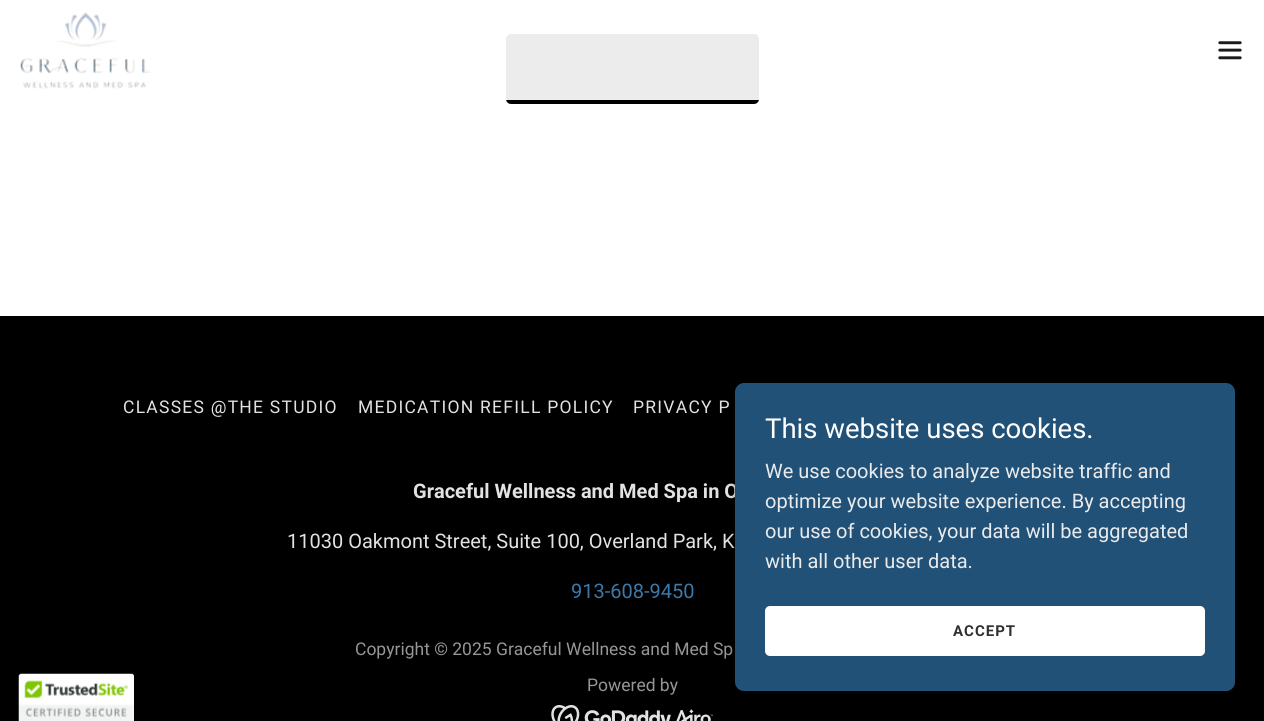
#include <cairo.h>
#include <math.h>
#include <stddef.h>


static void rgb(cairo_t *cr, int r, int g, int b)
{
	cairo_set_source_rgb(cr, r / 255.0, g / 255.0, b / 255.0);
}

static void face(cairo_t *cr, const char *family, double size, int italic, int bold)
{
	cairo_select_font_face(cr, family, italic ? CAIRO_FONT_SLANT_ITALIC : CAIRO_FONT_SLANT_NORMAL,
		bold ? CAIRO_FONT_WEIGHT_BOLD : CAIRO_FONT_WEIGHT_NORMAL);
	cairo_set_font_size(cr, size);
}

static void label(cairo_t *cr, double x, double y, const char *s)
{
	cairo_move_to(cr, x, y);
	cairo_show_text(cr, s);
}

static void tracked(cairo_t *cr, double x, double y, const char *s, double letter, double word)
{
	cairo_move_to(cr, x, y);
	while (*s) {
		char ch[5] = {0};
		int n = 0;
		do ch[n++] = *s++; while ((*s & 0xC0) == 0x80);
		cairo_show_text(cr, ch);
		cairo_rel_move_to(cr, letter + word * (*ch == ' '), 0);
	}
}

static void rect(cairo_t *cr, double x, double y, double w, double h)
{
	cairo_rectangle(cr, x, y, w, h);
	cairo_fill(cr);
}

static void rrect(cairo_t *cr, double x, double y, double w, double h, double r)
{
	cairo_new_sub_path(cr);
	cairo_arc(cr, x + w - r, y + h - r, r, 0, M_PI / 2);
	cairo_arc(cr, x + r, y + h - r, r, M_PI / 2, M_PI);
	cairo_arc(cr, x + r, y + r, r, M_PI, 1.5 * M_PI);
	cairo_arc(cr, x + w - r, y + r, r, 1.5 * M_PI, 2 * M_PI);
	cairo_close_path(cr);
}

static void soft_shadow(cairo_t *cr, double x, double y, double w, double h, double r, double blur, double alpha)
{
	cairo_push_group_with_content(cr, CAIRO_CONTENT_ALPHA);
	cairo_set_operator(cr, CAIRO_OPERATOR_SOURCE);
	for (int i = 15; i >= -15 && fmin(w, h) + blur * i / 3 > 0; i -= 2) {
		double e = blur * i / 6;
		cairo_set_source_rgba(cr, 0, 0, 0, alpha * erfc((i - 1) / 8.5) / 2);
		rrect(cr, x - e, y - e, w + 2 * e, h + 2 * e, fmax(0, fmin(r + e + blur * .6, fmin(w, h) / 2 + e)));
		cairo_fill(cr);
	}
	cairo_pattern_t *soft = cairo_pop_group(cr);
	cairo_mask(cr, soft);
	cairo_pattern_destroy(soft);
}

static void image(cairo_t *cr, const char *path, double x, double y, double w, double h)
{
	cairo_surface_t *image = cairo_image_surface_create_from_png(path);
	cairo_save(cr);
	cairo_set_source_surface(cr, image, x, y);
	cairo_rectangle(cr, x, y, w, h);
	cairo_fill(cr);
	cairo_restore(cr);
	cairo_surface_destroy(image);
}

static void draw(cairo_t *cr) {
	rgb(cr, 0, 0, 0);
	cairo_paint(cr);
	rgb(cr, 255, 255, 255);
	cairo_new_path(cr);
	cairo_move_to(cr, 21.5, 674);
	cairo_line_to(cr, 131.5, 674);
	cairo_curve_to(cr, 133, 674, 134, 675, 134, 676.5);
	cairo_line_to(cr, 134, 721);
	cairo_line_to(cr, 19, 721);
	cairo_line_to(cr, 19, 676.5);
	cairo_curve_to(cr, 19, 675, 20, 674, 21.5, 674);
	cairo_close_path(cr);
	cairo_fill(cr);
	image(cr, "image0.png", 18, 673, 116, 48);
	rect(cr, 0, 0, 1264, 316);
	rgb(cr, 0, 0, 0);
	rrect(cr, 506, 34, 253, 70, 5);
	cairo_fill(cr);
	cairo_set_source_rgba(cr, 1, 1, 1, 0.9);
	rect(cr, 506, 34, 253, 66);
	cairo_set_source_rgba(cr, 1, 1, 1, 0.25);
	rect(cr, 506, 34, 253, 66);
	image(cr, "image1.png", 20, 12, 130, 77);
	image(cr, "image2.png", 1218, 41, 24, 19);
	face(cr, "Roboto", 17.5, 0, 0);
	rgb(cr, 226, 226, 226);
	tracked(cr, 123, 413, "CLASSES @THE STUDIO", 1.25, 0);
	tracked(cr, 358, 413, "MEDICATION REFILL POLICY", 1.25, 0);
	tracked(cr, 633, 413, "PRIVACY P", 1.25, 0);
	face(cr, "Roboto", 20, 0, 1);
	label(cr, 413, 498, "Graceful Wellness and Med Spa in O");
	face(cr, "Roboto", 20, 0, 0);
	label(cr, 287, 548, "11030 Oakmont Street, Suite 100, Overland Park, K");
	rgb(cr, 60, 121, 171);
	label(cr, 571, 598, "913-608-9450");
	face(cr, "Roboto", 17.5, 0, 0);
	rgb(cr, 150, 150, 150);
	label(cr, 355, 655, "Copyright © 2025 Graceful Wellness and Med Sp");
	label(cr, 587, 691, "Powered by");
	image(cr, "image3.png", 551, 705, 162, 16);
	rgb(cr, 0, 0, 0);
	soft_shadow(cr, 735, 385, 500, 309, 9, 4, 0.3);
	rgb(cr, 34, 81, 119);
	rrect(cr, 735, 383, 500, 308, 9);
	cairo_fill(cr);
	face(cr, "Roboto", 27.5, 0, 0);
	rgb(cr, 255, 255, 255);
	label(cr, 765, 438, "This website uses cookies.");
	face(cr, "Roboto", 20, 0, 0);
	rgb(cr, 234, 235, 237);
	label(cr, 765, 478, "We use cookies to analyze website traffic and");
	label(cr, 765, 508, "optimize your website experience. By accepting");
	label(cr, 765, 538, "our use of cookies, your data will be aggregated");
	label(cr, 765, 568, "with all other user data.");
	rgb(cr, 255, 255, 255);
	rrect(cr, 765, 606, 440, 50, 5);
	cairo_fill(cr);
	face(cr, "Roboto", 15, 0, 1);
	rgb(cr, 48, 48, 48);
	tracked(cr, 953, 636, "ACCEPT", 1, 0);
}

int main(void) {
	cairo_surface_t *surface = cairo_image_surface_create(CAIRO_FORMAT_RGB24, 1264, 721);
	cairo_t *cr = cairo_create(surface);
	cairo_font_options_t *options = cairo_font_options_create();
	cairo_font_options_set_hint_metrics(options, CAIRO_HINT_METRICS_OFF);
	cairo_font_options_set_hint_style(options, CAIRO_HINT_STYLE_NONE);
	cairo_set_font_options(cr, options);
	cairo_set_miter_limit(cr, 4);
	draw(cr);
	cairo_surface_write_to_png(surface, "render.png");
	cairo_font_options_destroy(options);
	cairo_destroy(cr);
	cairo_surface_destroy(surface);
	return 0;
}
